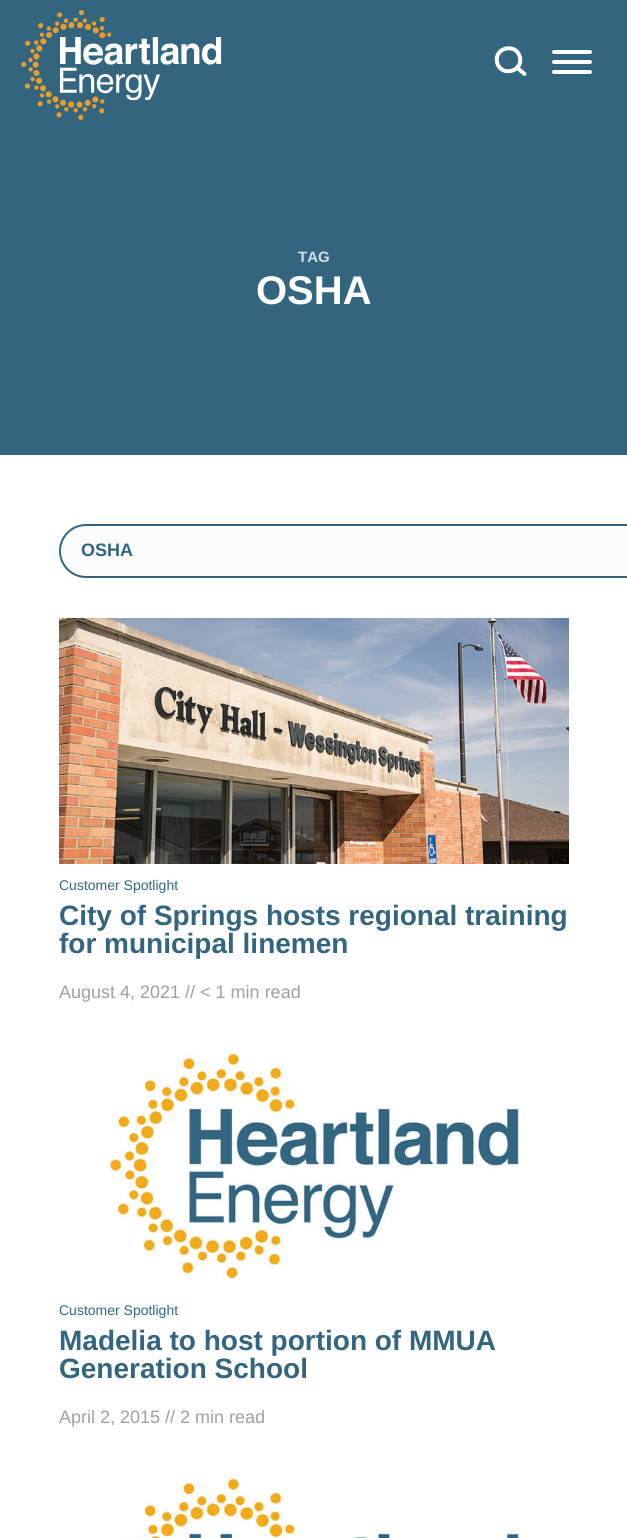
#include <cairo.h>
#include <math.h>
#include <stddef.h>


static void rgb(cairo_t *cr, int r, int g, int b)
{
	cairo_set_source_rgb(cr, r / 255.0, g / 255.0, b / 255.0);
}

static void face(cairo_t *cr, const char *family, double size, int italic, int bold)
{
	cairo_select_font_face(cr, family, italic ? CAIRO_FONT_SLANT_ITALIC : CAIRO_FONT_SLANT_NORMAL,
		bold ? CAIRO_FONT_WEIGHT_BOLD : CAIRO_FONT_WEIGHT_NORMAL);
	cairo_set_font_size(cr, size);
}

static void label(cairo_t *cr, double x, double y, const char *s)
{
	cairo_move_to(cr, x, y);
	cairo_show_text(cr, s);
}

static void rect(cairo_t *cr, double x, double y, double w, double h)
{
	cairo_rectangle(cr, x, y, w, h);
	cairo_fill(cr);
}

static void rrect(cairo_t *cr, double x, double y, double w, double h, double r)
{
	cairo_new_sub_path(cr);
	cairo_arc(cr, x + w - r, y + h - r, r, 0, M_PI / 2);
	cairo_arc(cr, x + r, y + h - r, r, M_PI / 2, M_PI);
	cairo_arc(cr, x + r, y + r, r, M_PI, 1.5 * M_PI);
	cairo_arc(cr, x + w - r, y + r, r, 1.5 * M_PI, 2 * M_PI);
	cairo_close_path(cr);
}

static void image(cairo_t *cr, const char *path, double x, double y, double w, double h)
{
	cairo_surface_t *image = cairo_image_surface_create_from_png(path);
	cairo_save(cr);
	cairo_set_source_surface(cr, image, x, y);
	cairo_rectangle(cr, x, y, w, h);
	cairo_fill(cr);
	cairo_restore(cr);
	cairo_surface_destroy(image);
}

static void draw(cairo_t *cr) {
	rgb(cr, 255, 255, 255);
	cairo_paint(cr);
	rgb(cr, 52, 101, 127);
	rect(cr, 0, 0, 627, 455);
	image(cr, "image0.png", 21, 10, 201, 110);
	cairo_new_path(cr);
	cairo_move_to(cr, 520, 57.5);
	cairo_curve_to(cr, 523, 72.5, 500, 77, 497, 62);
	cairo_curve_to(cr, 494, 47, 517, 42.5, 520, 57.5);
	cairo_close_path(cr);
	rgb(cr, 255, 255, 255);
	cairo_set_line_width(cr, 4);
	cairo_stroke(cr);
	cairo_new_path(cr);
	cairo_move_to(cr, 517, 67.5);
	cairo_line_to(cr, 524.5, 74);
	cairo_set_line_cap(cr, CAIRO_LINE_CAP_ROUND);
	cairo_stroke(cr);
	rrect(cr, 552, 60, 40, 4, 2);
	cairo_fill(cr);
	rrect(cr, 552, 50, 40, 4, 2);
	cairo_fill(cr);
	rrect(cr, 552, 70, 40, 4, 2);
	cairo_fill(cr);
	face(cr, "Liberation Sans", 15, 0, 1);
	rgb(cr, 214, 224, 229);
	label(cr, 298, 262, "TAG");
	face(cr, "Liberation Sans", 40, 0, 1);
	rgb(cr, 255, 255, 255);
	label(cr, 256, 304, "OSHA");
	rgb(cr, 250, 250, 250);
	rrect(cr, 60, 525, 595, 52, 26);
	cairo_fill_preserve(cr);
	rgb(cr, 52, 101, 127);
	cairo_set_line_width(cr, 2);
	cairo_set_line_cap(cr, CAIRO_LINE_CAP_BUTT);
	cairo_stroke(cr);
	face(cr, "Liberation Sans", 18, 0, 1);
	label(cr, 81, 556, "OSHA");
	image(cr, "image1.png", 59, 618, 510, 246);
	face(cr, "Liberation Sans", 14, 0, 0);
	label(cr, 59, 890, "Customer Spotlight");
	face(cr, "Liberation Sans", 28, 0, 1);
	label(cr, 59, 925, "City of Springs hosts regional training");
	label(cr, 59, 953, "for municipal linemen");
	face(cr, "Liberation Sans", 18, 0, 0);
	rgb(cr, 159, 159, 159);
	label(cr, 59, 998, "August 4, 2021 // < 1 min read");
	image(cr, "image2.png", 107, 1049, 414, 230);
	face(cr, "Liberation Sans", 14, 0, 0);
	rgb(cr, 52, 101, 127);
	label(cr, 59, 1315, "Customer Spotlight");
	face(cr, "Liberation Sans", 28, 0, 1);
	label(cr, 59, 1350, "Madelia to host portion of MMUA");
	label(cr, 59, 1378, "Generation School");
	face(cr, "Liberation Sans", 18, 0, 0);
	rgb(cr, 159, 159, 159);
	label(cr, 59, 1423, "April 2, 2015 // 2 min read");
	image(cr, "image3.png", 126, 1474, 395, 64);
}

int main(void) {
	cairo_surface_t *surface = cairo_image_surface_create(CAIRO_FORMAT_RGB24, 627, 1538);
	cairo_t *cr = cairo_create(surface);
	cairo_font_options_t *options = cairo_font_options_create();
	cairo_font_options_set_hint_metrics(options, CAIRO_HINT_METRICS_OFF);
	cairo_font_options_set_hint_style(options, CAIRO_HINT_STYLE_NONE);
	cairo_set_font_options(cr, options);
	cairo_set_miter_limit(cr, 4);
	draw(cr);
	cairo_surface_write_to_png(surface, "render.png");
	cairo_font_options_destroy(options);
	cairo_destroy(cr);
	cairo_surface_destroy(surface);
	return 0;
}
